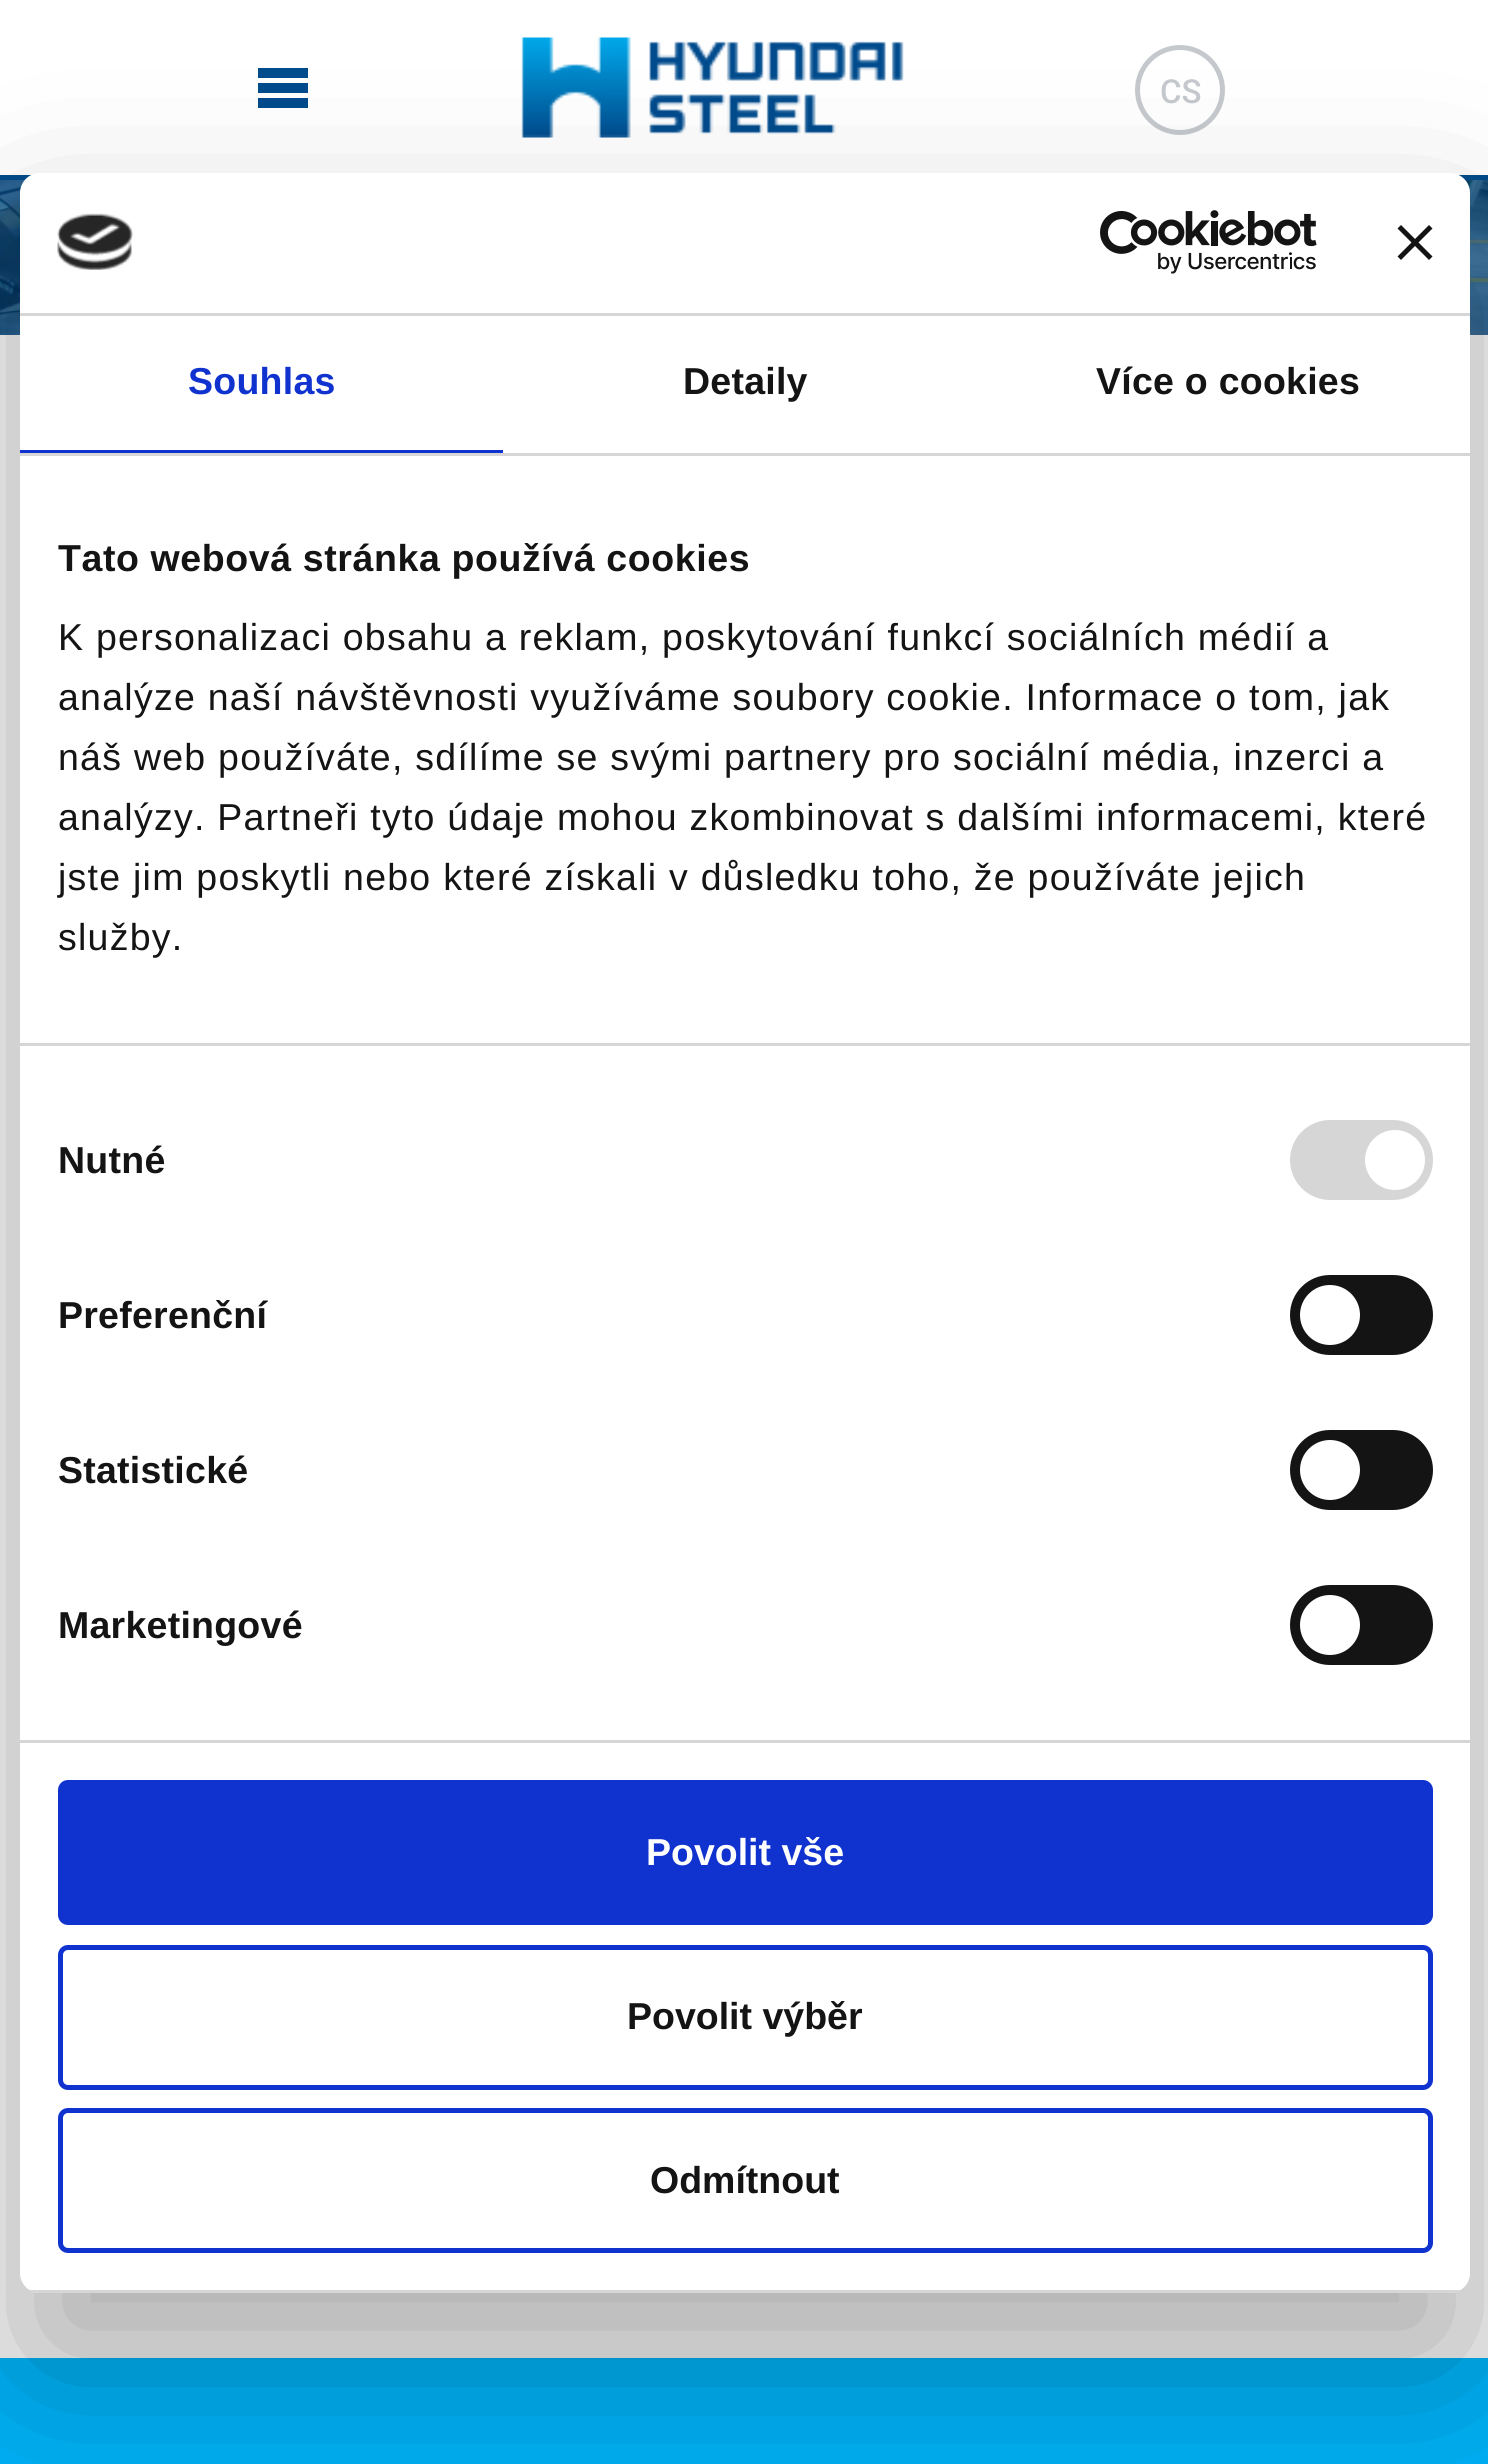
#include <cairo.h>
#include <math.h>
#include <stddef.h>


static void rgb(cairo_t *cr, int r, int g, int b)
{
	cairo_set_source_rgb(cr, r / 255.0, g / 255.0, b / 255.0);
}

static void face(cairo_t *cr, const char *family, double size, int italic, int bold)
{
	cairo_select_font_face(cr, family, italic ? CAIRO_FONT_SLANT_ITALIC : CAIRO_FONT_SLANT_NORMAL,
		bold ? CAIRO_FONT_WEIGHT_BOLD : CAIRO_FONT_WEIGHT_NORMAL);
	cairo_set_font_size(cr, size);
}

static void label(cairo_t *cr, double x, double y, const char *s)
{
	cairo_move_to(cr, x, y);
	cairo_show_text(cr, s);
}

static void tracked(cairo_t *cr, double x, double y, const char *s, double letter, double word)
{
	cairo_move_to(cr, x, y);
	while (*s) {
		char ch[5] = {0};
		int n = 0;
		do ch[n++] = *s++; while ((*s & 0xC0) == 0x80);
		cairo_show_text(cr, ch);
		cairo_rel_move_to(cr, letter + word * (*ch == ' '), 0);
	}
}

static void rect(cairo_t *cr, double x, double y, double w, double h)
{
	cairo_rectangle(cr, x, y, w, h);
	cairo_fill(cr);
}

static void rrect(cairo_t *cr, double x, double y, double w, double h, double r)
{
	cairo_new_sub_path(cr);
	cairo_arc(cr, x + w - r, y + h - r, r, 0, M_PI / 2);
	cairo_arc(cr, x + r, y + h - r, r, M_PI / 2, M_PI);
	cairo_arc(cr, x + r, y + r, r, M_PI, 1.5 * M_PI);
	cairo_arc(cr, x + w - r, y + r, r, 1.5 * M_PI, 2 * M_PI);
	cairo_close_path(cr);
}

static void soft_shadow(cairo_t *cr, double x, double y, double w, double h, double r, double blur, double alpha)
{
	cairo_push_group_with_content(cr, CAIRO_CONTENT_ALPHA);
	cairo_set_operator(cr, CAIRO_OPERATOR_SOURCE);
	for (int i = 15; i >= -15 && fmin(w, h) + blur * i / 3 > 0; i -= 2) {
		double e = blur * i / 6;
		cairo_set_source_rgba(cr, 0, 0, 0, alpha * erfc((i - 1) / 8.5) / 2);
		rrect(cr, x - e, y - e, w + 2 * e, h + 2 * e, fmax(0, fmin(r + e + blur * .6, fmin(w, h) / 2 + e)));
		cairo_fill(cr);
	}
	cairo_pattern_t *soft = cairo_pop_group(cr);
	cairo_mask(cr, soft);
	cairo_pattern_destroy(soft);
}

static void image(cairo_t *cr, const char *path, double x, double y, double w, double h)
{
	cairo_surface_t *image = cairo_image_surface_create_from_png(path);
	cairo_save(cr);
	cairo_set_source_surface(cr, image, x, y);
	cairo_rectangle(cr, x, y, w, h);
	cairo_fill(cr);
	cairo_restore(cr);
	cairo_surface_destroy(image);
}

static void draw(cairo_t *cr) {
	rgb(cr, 255, 255, 255);
	cairo_paint(cr);
	rgb(cr, 0, 75, 141);
	rect(cr, 0, 175, 1488, 5);
	rect(cr, 258, 68, 50, 10);
	rect(cr, 258, 83, 50, 10);
	rect(cr, 258, 98, 50, 10);
	image(cr, "image0.png", 521, 37, 383, 101);
	cairo_arc(cr, 1180, 90, 42.5, 0, 2 * M_PI);
	rgb(cr, 197, 201, 205);
	cairo_set_line_width(cr, 5);
	cairo_stroke(cr);
	face(cr, "Roboto Medium", 33, 0, 0);
	label(cr, 1160, 103, "CS");
	image(cr, "image1.png", 0, 180, 1488, 155);
	rgb(cr, 247, 247, 247);
	rect(cr, 0, 335, 1488, 2023);
	rgb(cr, 0, 177, 246);
	rect(cr, 0, 2358, 1488, 106);
	rgb(cr, 0, 0, 0);
	soft_shadow(cr, 20, 253, 1450, 2120, 20, 85, 0.3);
	rgb(cr, 255, 255, 255);
	rrect(cr, 20, 173, 1450, 2120, 20);
	cairo_fill(cr);
	rgb(cr, 214, 214, 214);
	rect(cr, 20, 313, 1450, 3);
	image(cr, "image2.png", 57, 213, 76, 57);
	image(cr, "image3.png", 1100, 210, 217, 64);
	rgb(cr, 20, 20, 20);
	cairo_new_path(cr);
	cairo_move_to(cr, 1432.5, 228.5);
	cairo_line_to(cr, 1429, 225);
	cairo_line_to(cr, 1415, 239);
	cairo_line_to(cr, 1401, 225);
	cairo_line_to(cr, 1397.5, 228.5);
	cairo_line_to(cr, 1411.5, 242.5);
	cairo_line_to(cr, 1397.5, 256.5);
	cairo_line_to(cr, 1401, 260);
	cairo_line_to(cr, 1415, 246);
	cairo_line_to(cr, 1429, 260);
	cairo_line_to(cr, 1432.5, 256.5);
	cairo_line_to(cr, 1418.5, 242.5);
	cairo_close_path(cr);
	cairo_fill(cr);
	rgb(cr, 214, 214, 214);
	rect(cr, 20, 453, 1450, 3);
	rgb(cr, 16, 50, 207);
	rect(cr, 20, 450, 483, 3);
	face(cr, "Liberation Sans", 37.5, 0, 1);
	tracked(cr, 188, 394, "Souhlas", 0.25, 0);
	rgb(cr, 20, 20, 20);
	tracked(cr, 683, 394, "Detaily", 0.25, 0);
	tracked(cr, 1096, 394, "Více o cookies", 0.25, 0);
	rgb(cr, 214, 214, 214);
	rect(cr, 20, 1043, 1450, 3);
	rgb(cr, 20, 20, 20);
	tracked(cr, 58, 571, "Tato webová stránka používá cookies", 0.6, 0);
	face(cr, "Liberation Sans", 37.5, 0, 0);
	tracked(cr, 58, 650, "K personalizaci obsahu a reklam, poskytování funkcí sociálních médií a", 1.25, 0);
	tracked(cr, 58, 710, "analýze naší návštěvnosti využíváme soubory cookie. Informace o tom, jak", 1.25, 0);
	tracked(cr, 58, 770, "náš web používáte, sdílíme se svými partnery pro sociální média, inzerci a", 1.25, 0);
	tracked(cr, 58, 830, "analýzy. Partneři tyto údaje mohou zkombinovat s dalšími informacemi, které", 1.25, 0);
	tracked(cr, 58, 890, "jste jim poskytli nebo které získali v důsledku toho, že používáte jejich", 1.25, 0);
	tracked(cr, 58, 950, "služby.", 1.25, 0);
	rgb(cr, 214, 214, 214);
	rect(cr, 20, 1740, 1450, 3);
	face(cr, "Liberation Sans", 37.5, 0, 1);
	rgb(cr, 20, 20, 20);
	tracked(cr, 58, 1173, "Nutné", 0.25, 0);
	rgb(cr, 214, 214, 214);
	rrect(cr, 1290, 1120, 143, 80, 40);
	cairo_fill(cr);
	rgb(cr, 255, 255, 255);
	cairo_arc(cr, 1395, 1160, 30, 0, 2 * M_PI);
	cairo_fill(cr);
	rgb(cr, 20, 20, 20);
	tracked(cr, 58, 1328, "Preferenční", 0.25, 0);
	rrect(cr, 1290, 1275, 143, 80, 40);
	cairo_fill(cr);
	rgb(cr, 255, 255, 255);
	cairo_arc(cr, 1330, 1315, 30, 0, 2 * M_PI);
	cairo_fill(cr);
	rgb(cr, 20, 20, 20);
	tracked(cr, 58, 1483, "Statistické", 0.25, 0);
	rrect(cr, 1290, 1430, 143, 80, 40);
	cairo_fill(cr);
	rgb(cr, 255, 255, 255);
	cairo_arc(cr, 1330, 1470, 30, 0, 2 * M_PI);
	cairo_fill(cr);
	rgb(cr, 20, 20, 20);
	tracked(cr, 58, 1638, "Marketingové", 0.25, 0);
	rrect(cr, 1290, 1585, 143, 80, 40);
	cairo_fill(cr);
	rgb(cr, 255, 255, 255);
	cairo_arc(cr, 1330, 1625, 30, 0, 2 * M_PI);
	cairo_fill(cr);
	cairo_save(cr);
	rrect(cr, 20, 173, 1450, 2120, 20);
	cairo_clip(cr);
	rgb(cr, 214, 214, 214);
	rect(cr, 29, 2290, 1432, 3);
	cairo_restore(cr);
	rgb(cr, 16, 50, 207);
	rrect(cr, 60.5, 1782.5, 1370, 140, 7.5);
	cairo_fill_preserve(cr);
	cairo_stroke(cr);
	rgb(cr, 255, 255, 255);
	label(cr, 646, 1865, "Povolit vše");
	rrect(cr, 60.5, 1947.5, 1370, 140, 7.5);
	rgb(cr, 16, 50, 207);
	cairo_stroke(cr);
	rgb(cr, 20, 20, 20);
	label(cr, 627, 2029, "Povolit výběr");
	rrect(cr, 60.5, 2110.5, 1370, 140, 7.5);
	rgb(cr, 16, 50, 207);
	cairo_stroke(cr);
	rgb(cr, 20, 20, 20);
	label(cr, 650, 2193, "Odmítnout");
}

int main(void) {
	cairo_surface_t *surface = cairo_image_surface_create(CAIRO_FORMAT_RGB24, 1488, 2464);
	cairo_t *cr = cairo_create(surface);
	cairo_font_options_t *options = cairo_font_options_create();
	cairo_font_options_set_hint_metrics(options, CAIRO_HINT_METRICS_OFF);
	cairo_font_options_set_hint_style(options, CAIRO_HINT_STYLE_NONE);
	cairo_set_font_options(cr, options);
	cairo_set_miter_limit(cr, 4);
	draw(cr);
	cairo_surface_write_to_png(surface, "render.png");
	cairo_font_options_destroy(options);
	cairo_destroy(cr);
	cairo_surface_destroy(surface);
	return 0;
}
